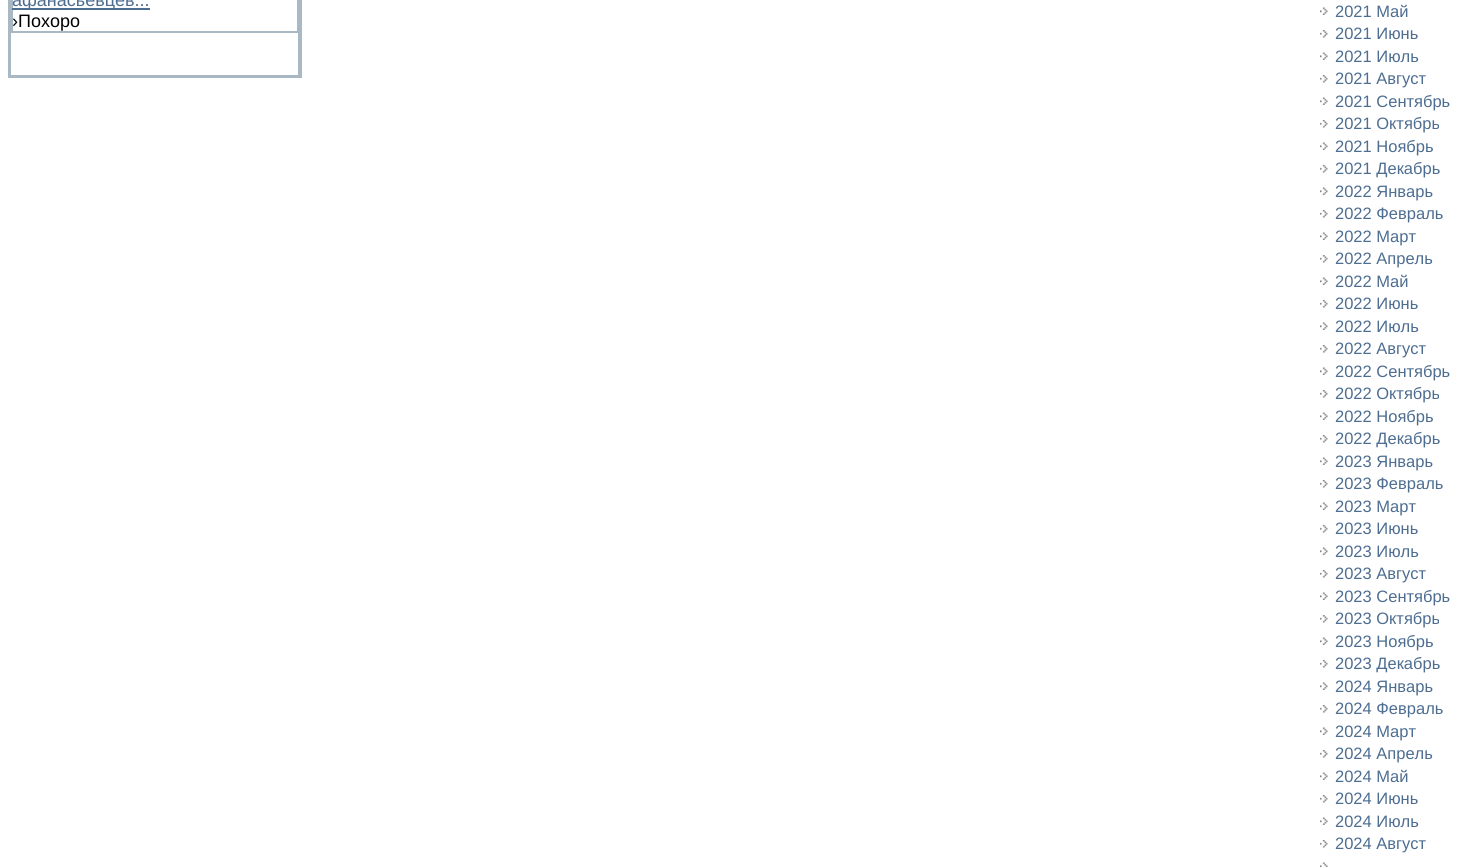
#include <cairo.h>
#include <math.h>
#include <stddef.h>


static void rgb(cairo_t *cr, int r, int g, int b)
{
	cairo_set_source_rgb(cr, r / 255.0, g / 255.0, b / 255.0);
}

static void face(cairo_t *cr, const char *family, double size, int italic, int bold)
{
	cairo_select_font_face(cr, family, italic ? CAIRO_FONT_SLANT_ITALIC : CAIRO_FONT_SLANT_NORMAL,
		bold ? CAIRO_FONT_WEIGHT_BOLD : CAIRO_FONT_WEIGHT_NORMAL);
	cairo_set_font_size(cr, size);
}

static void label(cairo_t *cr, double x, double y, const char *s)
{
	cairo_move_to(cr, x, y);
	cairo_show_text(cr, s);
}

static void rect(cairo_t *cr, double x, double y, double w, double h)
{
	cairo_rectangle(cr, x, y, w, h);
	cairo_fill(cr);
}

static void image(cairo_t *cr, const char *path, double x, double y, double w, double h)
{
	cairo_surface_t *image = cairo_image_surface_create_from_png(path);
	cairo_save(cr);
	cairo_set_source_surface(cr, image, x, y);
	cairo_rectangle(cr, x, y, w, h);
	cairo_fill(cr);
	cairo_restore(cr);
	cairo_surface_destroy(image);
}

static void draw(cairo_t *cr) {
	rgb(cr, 255, 255, 255);
	cairo_paint(cr);
	cairo_rectangle(cr, 9, -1, 292, 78);
	rgb(cr, 169, 184, 194);
	cairo_stroke(cr);
	cairo_rectangle(cr, 10, -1, 289, 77);
	cairo_stroke(cr);
	cairo_rectangle(cr, 12, -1, 286, 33);
	cairo_stroke(cr);
	rgb(cr, 77, 109, 145);
	rect(cr, 12, 8, 138, 2);
	face(cr, "Liberation Sans", 18, 0, 0);
	label(cr, 12, 6, "афанасьевцев...");
	rgb(cr, 0, 0, 0);
	label(cr, 12, 27, "›Похоро");
	image(cr, "image0.png", 1320, 7, 8, 8);
	face(cr, "Liberation Sans", 16.5, 0, 0);
	rgb(cr, 77, 109, 145);
	label(cr, 1335, 17, "2021 Май");
	image(cr, "image1.png", 1320, 30, 8, 8);
	label(cr, 1335, 39, "2021 Июнь");
	image(cr, "image0.png", 1320, 52, 8, 8);
	label(cr, 1335, 62, "2021 Июль");
	image(cr, "image1.png", 1320, 75, 8, 8);
	label(cr, 1335, 84, "2021 Август");
	image(cr, "image0.png", 1320, 97, 8, 8);
	label(cr, 1335, 107, "2021 Сентябрь");
	image(cr, "image1.png", 1320, 120, 8, 8);
	label(cr, 1335, 129, "2021 Октябрь");
	image(cr, "image0.png", 1320, 142, 8, 8);
	label(cr, 1335, 152, "2021 Ноябрь");
	image(cr, "image1.png", 1320, 165, 8, 8);
	label(cr, 1335, 174, "2021 Декабрь");
	image(cr, "image0.png", 1320, 187, 8, 8);
	label(cr, 1335, 197, "2022 Январь");
	image(cr, "image1.png", 1320, 210, 8, 8);
	label(cr, 1335, 219, "2022 Февраль");
	image(cr, "image0.png", 1320, 232, 8, 8);
	label(cr, 1335, 242, "2022 Март");
	image(cr, "image1.png", 1320, 255, 8, 8);
	label(cr, 1335, 264, "2022 Апрель");
	image(cr, "image0.png", 1320, 277, 8, 8);
	label(cr, 1335, 287, "2022 Май");
	image(cr, "image1.png", 1320, 300, 8, 8);
	label(cr, 1335, 309, "2022 Июнь");
	image(cr, "image0.png", 1320, 322, 8, 8);
	label(cr, 1335, 332, "2022 Июль");
	image(cr, "image1.png", 1320, 345, 8, 8);
	label(cr, 1335, 354, "2022 Август");
	image(cr, "image0.png", 1320, 367, 8, 8);
	label(cr, 1335, 377, "2022 Сентябрь");
	image(cr, "image1.png", 1320, 390, 8, 8);
	label(cr, 1335, 399, "2022 Октябрь");
	image(cr, "image0.png", 1320, 412, 8, 8);
	label(cr, 1335, 422, "2022 Ноябрь");
	image(cr, "image1.png", 1320, 435, 8, 8);
	label(cr, 1335, 444, "2022 Декабрь");
	image(cr, "image0.png", 1320, 457, 8, 8);
	label(cr, 1335, 467, "2023 Январь");
	image(cr, "image1.png", 1320, 480, 8, 8);
	label(cr, 1335, 489, "2023 Февраль");
	image(cr, "image0.png", 1320, 502, 8, 8);
	label(cr, 1335, 512, "2023 Март");
	image(cr, "image1.png", 1320, 525, 8, 8);
	label(cr, 1335, 534, "2023 Июнь");
	image(cr, "image0.png", 1320, 547, 8, 8);
	label(cr, 1335, 557, "2023 Июль");
	image(cr, "image1.png", 1320, 570, 8, 8);
	label(cr, 1335, 579, "2023 Август");
	image(cr, "image0.png", 1320, 592, 8, 8);
	label(cr, 1335, 602, "2023 Сентябрь");
	image(cr, "image1.png", 1320, 615, 8, 8);
	label(cr, 1335, 624, "2023 Октябрь");
	image(cr, "image0.png", 1320, 637, 8, 8);
	label(cr, 1335, 647, "2023 Ноябрь");
	image(cr, "image1.png", 1320, 660, 8, 8);
	label(cr, 1335, 669, "2023 Декабрь");
	image(cr, "image0.png", 1320, 682, 8, 8);
	label(cr, 1335, 692, "2024 Январь");
	image(cr, "image1.png", 1320, 705, 8, 8);
	label(cr, 1335, 714, "2024 Февраль");
	image(cr, "image0.png", 1320, 727, 8, 8);
	label(cr, 1335, 737, "2024 Март");
	image(cr, "image1.png", 1320, 750, 8, 8);
	label(cr, 1335, 759, "2024 Апрель");
	image(cr, "image0.png", 1320, 772, 8, 8);
	label(cr, 1335, 782, "2024 Май");
	image(cr, "image1.png", 1320, 795, 8, 8);
	label(cr, 1335, 804, "2024 Июнь");
	image(cr, "image0.png", 1320, 817, 8, 8);
	label(cr, 1335, 827, "2024 Июль");
	image(cr, "image1.png", 1320, 840, 8, 8);
	label(cr, 1335, 849, "2024 Август");
	image(cr, "image2.png", 1320, 862, 8, 5);
}

int main(void) {
	cairo_surface_t *surface = cairo_image_surface_create(CAIRO_FORMAT_RGB24, 1458, 867);
	cairo_t *cr = cairo_create(surface);
	cairo_font_options_t *options = cairo_font_options_create();
	cairo_font_options_set_hint_metrics(options, CAIRO_HINT_METRICS_OFF);
	cairo_font_options_set_hint_style(options, CAIRO_HINT_STYLE_NONE);
	cairo_set_font_options(cr, options);
	cairo_set_miter_limit(cr, 4);
	draw(cr);
	cairo_surface_write_to_png(surface, "render.png");
	cairo_font_options_destroy(options);
	cairo_destroy(cr);
	cairo_surface_destroy(surface);
	return 0;
}
